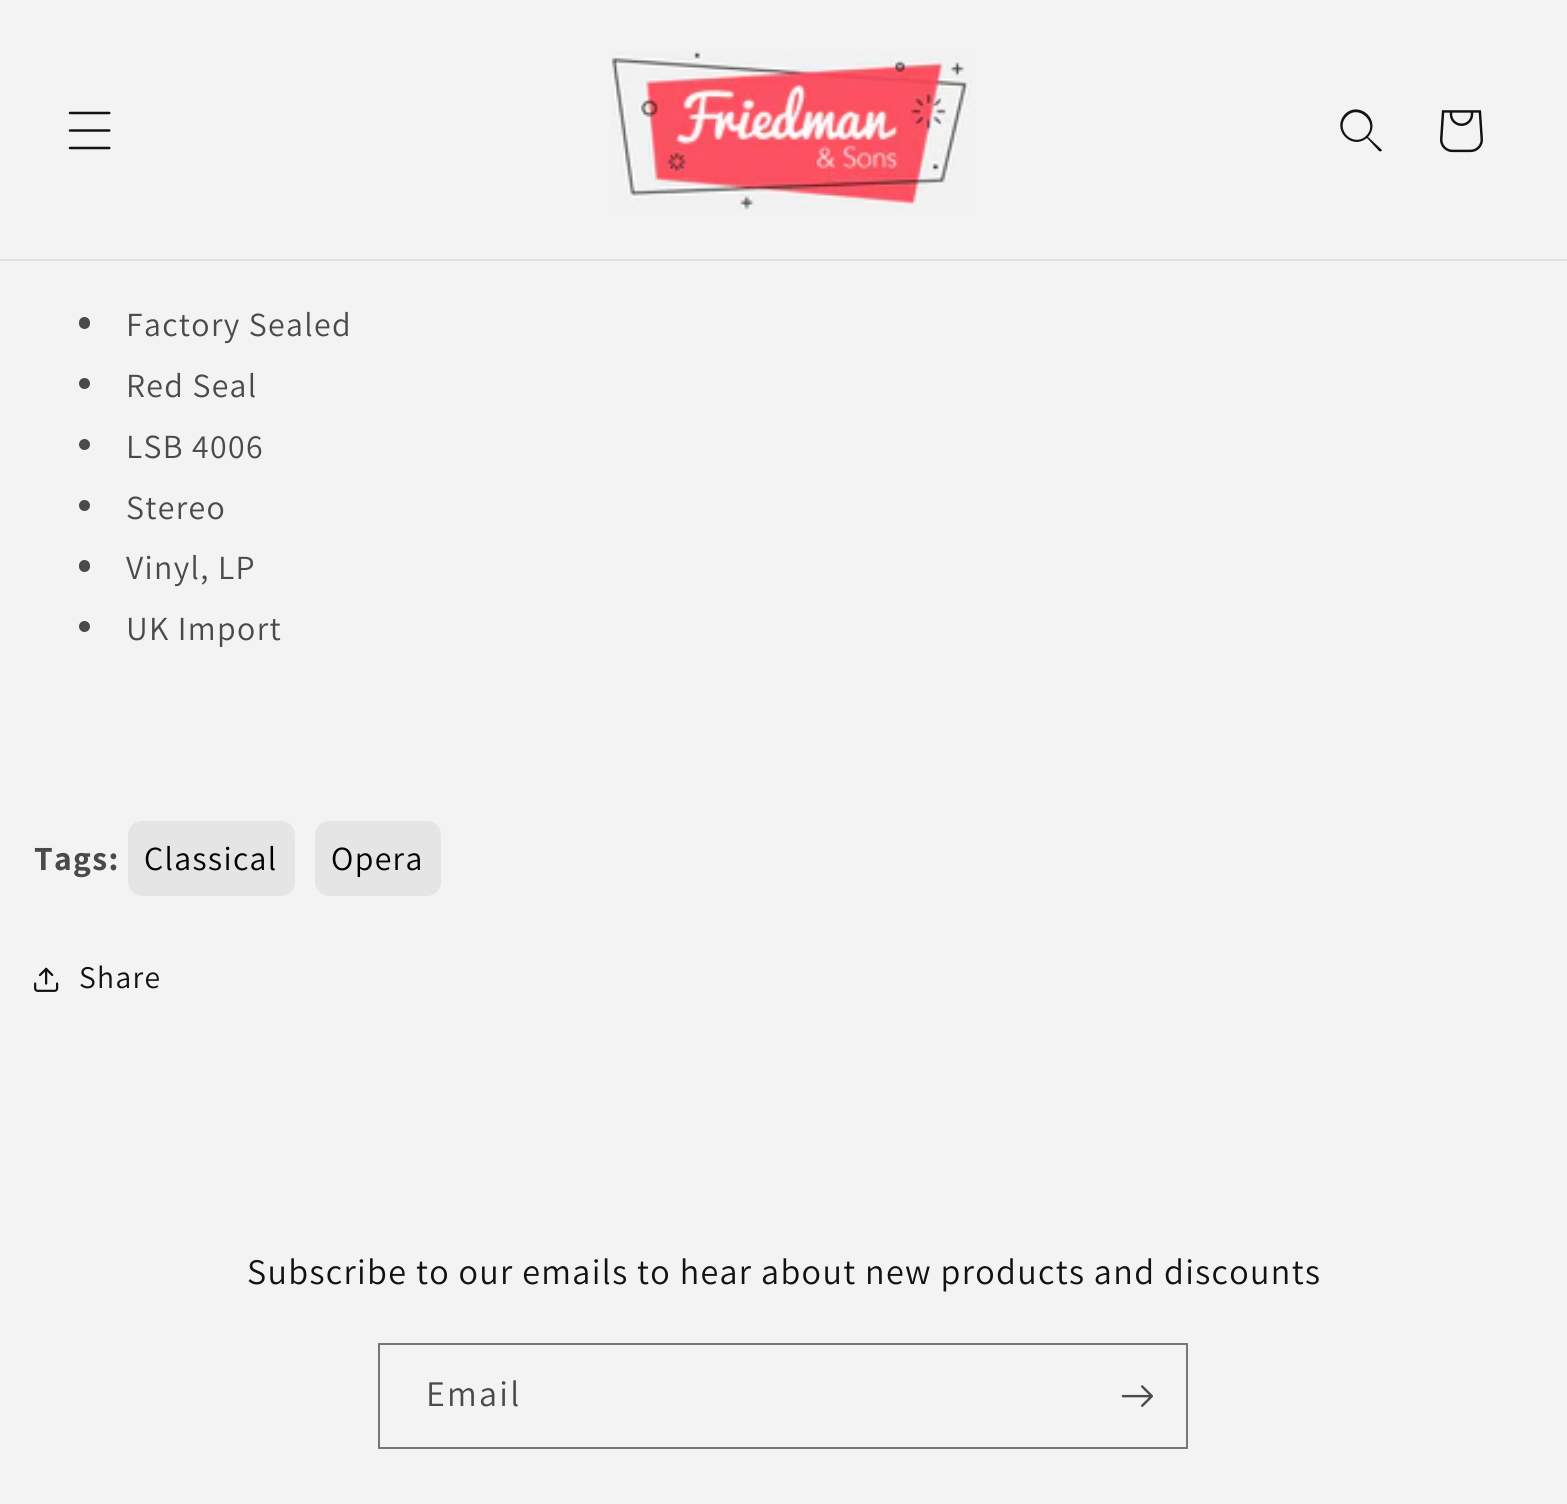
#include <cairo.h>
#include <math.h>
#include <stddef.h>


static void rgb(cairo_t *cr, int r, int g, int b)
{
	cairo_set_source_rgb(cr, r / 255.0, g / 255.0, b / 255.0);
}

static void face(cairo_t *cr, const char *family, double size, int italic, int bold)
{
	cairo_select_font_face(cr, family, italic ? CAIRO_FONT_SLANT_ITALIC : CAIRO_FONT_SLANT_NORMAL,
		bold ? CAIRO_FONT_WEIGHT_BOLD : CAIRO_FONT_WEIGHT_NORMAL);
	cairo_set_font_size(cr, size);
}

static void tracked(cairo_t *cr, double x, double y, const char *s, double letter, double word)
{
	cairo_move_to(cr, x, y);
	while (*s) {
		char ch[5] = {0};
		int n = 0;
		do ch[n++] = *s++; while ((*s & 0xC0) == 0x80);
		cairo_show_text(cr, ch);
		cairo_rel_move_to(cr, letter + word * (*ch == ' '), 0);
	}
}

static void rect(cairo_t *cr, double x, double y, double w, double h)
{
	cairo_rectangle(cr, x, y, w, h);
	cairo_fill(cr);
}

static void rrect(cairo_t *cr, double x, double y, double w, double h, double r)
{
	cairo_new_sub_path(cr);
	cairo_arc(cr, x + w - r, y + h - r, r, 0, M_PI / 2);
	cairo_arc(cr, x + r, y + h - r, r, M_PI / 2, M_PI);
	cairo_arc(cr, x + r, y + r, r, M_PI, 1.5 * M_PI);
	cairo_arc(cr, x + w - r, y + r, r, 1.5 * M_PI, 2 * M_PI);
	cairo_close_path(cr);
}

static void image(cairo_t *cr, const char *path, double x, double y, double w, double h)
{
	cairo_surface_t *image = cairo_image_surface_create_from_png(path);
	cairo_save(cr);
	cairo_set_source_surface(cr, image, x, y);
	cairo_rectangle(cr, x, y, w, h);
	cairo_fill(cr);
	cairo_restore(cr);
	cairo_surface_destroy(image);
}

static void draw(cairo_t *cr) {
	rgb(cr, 243, 243, 243);
	cairo_paint(cr);
	rgb(cr, 225, 225, 225);
	rect(cr, 0, 259, 1567, 2);
	image(cr, "image0.png", 68, 111, 43, 39);
	image(cr, "image1.png", 610, 51, 362, 159);
	rgb(cr, 18, 18, 18);
	cairo_set_fill_rule(cr, CAIRO_FILL_RULE_EVEN_ODD);
	cairo_new_path(cr);
	cairo_move_to(cr, 1366, 136);
	cairo_curve_to(cr, 1353, 148, 1334, 129, 1347, 116);
	cairo_curve_to(cr, 1359, 104, 1379, 123, 1366, 136);
	cairo_move_to(cr, 1367, 138);
	cairo_curve_to(cr, 1351, 151, 1331, 129, 1345, 114);
	cairo_curve_to(cr, 1360, 100, 1382, 121, 1368, 137);
	cairo_line_to(cr, 1382, 150);
	cairo_curve_to(cr, 1382, 151, 1380, 152, 1379, 151);
	cairo_close_path(cr);
	cairo_fill(cr);
	image(cr, "image2.png", 1440, 110, 43, 43);
	rgb(cr, 74, 74, 74);
	rrect(cr, 79, 317, 11, 12, 5.5);
	cairo_fill(cr);
	face(cr, "Assistant", 33.75, 0, 0);
	tracked(cr, 126, 336, "Factory Sealed", 1.35, 0);
	cairo_new_path(cr);
	cairo_arc(cr, 84.5, 383.5, 5.5, 0, 2 * M_PI);
	cairo_fill(cr);
	tracked(cr, 126, 397, "Red Seal", 1.35, 0);
	cairo_new_path(cr);
	cairo_arc(cr, 84.5, 444.5, 5.5, 0, 2 * M_PI);
	cairo_fill(cr);
	tracked(cr, 126, 458, "LSB 4006", 1.35, 0);
	cairo_new_path(cr);
	cairo_arc(cr, 84.5, 505.5, 5.5, 0, 2 * M_PI);
	cairo_fill(cr);
	tracked(cr, 126, 519, "Stereo", 1.35, 0);
	rrect(cr, 79, 560, 11, 12, 5.5);
	cairo_fill(cr);
	tracked(cr, 126, 579, "Vinyl, LP", 1.35, 0);
	cairo_new_path(cr);
	cairo_arc(cr, 84.5, 626.5, 5.5, 0, 2 * M_PI);
	cairo_fill(cr);
	tracked(cr, 126, 640, "UK Import", 1.35, 0);
	face(cr, "Assistant", 33.75, 0, 1);
	tracked(cr, 34, 870, "Tags:", 1.35, 0);
	rgb(cr, 229, 229, 229);
	rrect(cr, 128, 821, 167, 75, 14);
	cairo_fill(cr);
	face(cr, "Assistant", 33.75, 0, 0);
	rgb(cr, 0, 0, 0);
	tracked(cr, 144, 870, "Classical", 1.35, 0);
	rgb(cr, 229, 229, 229);
	rrect(cr, 315, 821, 126, 75, 14);
	cairo_fill(cr);
	rgb(cr, 0, 0, 0);
	tracked(cr, 331, 870, "Opera", 1.35, 0);
	image(cr, "image3.png", 34, 967, 25, 25);
	face(cr, "Assistant", 31.5, 0, 0);
	rgb(cr, 18, 18, 18);
	tracked(cr, 79, 988, "Share", 1.35, 0);
	face(cr, "Assistant", 36, 0, 0);
	tracked(cr, 247, 1284, "Subscribe to our emails to hear about new products and discounts", 1.35, 0);
	cairo_rectangle(cr, 379, 1344, 808, 104);
	rgb(cr, 119, 119, 119);
	cairo_stroke(cr);
	rgb(cr, 74, 74, 74);
	tracked(cr, 426, 1406, "Email", 2.25, 0);
	image(cr, "image4.png", 1121, 1385, 32, 22);
}

int main(void) {
	cairo_surface_t *surface = cairo_image_surface_create(CAIRO_FORMAT_RGB24, 1567, 1504);
	cairo_t *cr = cairo_create(surface);
	cairo_font_options_t *options = cairo_font_options_create();
	cairo_font_options_set_hint_metrics(options, CAIRO_HINT_METRICS_OFF);
	cairo_font_options_set_hint_style(options, CAIRO_HINT_STYLE_NONE);
	cairo_set_font_options(cr, options);
	cairo_set_miter_limit(cr, 4);
	draw(cr);
	cairo_surface_write_to_png(surface, "render.png");
	cairo_font_options_destroy(options);
	cairo_destroy(cr);
	cairo_surface_destroy(surface);
	return 0;
}
